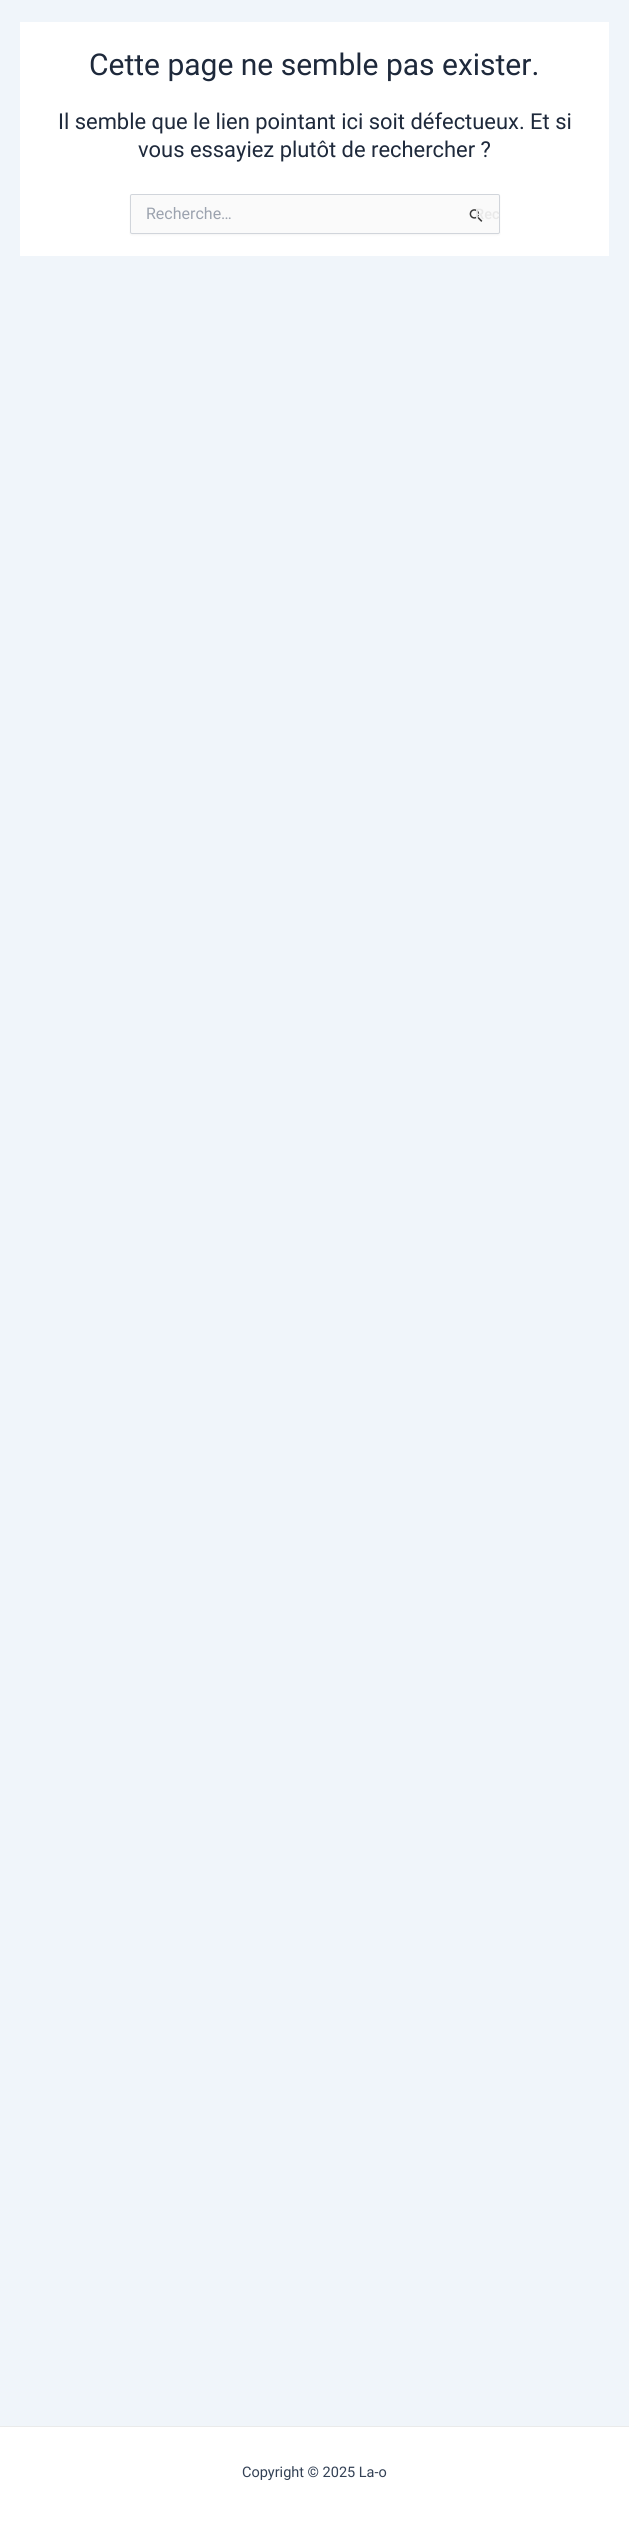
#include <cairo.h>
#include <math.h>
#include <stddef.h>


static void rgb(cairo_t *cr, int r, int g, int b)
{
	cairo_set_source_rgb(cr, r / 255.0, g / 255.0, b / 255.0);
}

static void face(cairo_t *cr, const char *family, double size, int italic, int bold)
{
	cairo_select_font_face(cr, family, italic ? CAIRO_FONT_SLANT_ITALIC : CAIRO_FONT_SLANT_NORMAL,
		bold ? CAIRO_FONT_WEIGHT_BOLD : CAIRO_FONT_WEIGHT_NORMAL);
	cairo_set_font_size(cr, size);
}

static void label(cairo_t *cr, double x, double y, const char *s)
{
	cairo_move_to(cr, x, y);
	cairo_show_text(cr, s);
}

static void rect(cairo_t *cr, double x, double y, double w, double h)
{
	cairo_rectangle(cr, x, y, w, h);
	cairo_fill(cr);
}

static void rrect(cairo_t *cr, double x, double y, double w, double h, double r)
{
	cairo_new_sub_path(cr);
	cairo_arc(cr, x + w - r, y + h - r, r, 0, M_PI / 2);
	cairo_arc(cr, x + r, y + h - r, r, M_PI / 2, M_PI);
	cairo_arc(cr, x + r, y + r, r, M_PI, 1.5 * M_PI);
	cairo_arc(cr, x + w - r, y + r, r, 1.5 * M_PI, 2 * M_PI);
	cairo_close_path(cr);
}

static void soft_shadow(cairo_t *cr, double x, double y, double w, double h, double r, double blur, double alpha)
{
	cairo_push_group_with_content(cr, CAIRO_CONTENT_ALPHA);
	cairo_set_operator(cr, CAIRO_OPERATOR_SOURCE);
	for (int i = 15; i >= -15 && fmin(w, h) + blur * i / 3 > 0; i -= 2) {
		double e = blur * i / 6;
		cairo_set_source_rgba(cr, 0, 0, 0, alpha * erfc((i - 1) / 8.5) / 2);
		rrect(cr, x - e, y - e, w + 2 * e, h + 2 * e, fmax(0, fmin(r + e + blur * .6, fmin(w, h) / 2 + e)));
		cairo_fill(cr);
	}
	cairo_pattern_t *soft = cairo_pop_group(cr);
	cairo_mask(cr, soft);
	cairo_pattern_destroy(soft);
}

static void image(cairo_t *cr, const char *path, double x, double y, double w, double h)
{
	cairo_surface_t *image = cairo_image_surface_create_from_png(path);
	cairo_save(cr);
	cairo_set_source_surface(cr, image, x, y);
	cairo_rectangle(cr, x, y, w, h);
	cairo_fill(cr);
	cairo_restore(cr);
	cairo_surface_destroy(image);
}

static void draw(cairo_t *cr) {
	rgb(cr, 240, 245, 250);
	cairo_paint(cr);
	rgb(cr, 255, 255, 255);
	rect(cr, 20, 22, 589, 234);
	face(cr, "Roboto", 30, 0, 0);
	rgb(cr, 30, 41, 59);
	label(cr, 89, 75, "Cette page ne semble pas exister.");
	face(cr, "Roboto", 21.9, 0, 0);
	label(cr, 58, 129, "Il semble que le lien pointant ici soit défectueux. Et si");
	label(cr, 138, 157, "vous essayiez plutôt de rechercher ?");
	rgb(cr, 0, 0, 0);
	soft_shadow(cr, 130, 195, 370, 40, 2, 1, 0.05);
	rgb(cr, 250, 250, 250);
	rrect(cr, 130.5, 194.5, 369, 39, 1.5);
	cairo_fill_preserve(cr);
	rgb(cr, 209, 213, 219);
	cairo_set_line_width(cr, 1);
	cairo_stroke(cr);
	face(cr, "Roboto", 16, 0, 0);
	rgb(cr, 156, 163, 175);
	label(cr, 146, 219, "Recherche…");
	image(cr, "image0.png", 469, 209, 14, 13);
	face(cr, "Roboto Medium", 14.5, 0, 0);
	rgb(cr, 233, 233, 233);
	label(cr, 475, 219, "Rec");
	rgb(cr, 255, 255, 255);
	rect(cr, 0, 2427, 629, 100);
	rgb(cr, 234, 234, 234);
	rect(cr, 0, 2426, 629, 1);
	face(cr, "Roboto", 14.5, 0, 0);
	rgb(cr, 51, 65, 85);
	label(cr, 242, 2477, "Copyright © 2025 La-o");
}

int main(void) {
	cairo_surface_t *surface = cairo_image_surface_create(CAIRO_FORMAT_RGB24, 629, 2527);
	cairo_t *cr = cairo_create(surface);
	cairo_font_options_t *options = cairo_font_options_create();
	cairo_font_options_set_hint_metrics(options, CAIRO_HINT_METRICS_OFF);
	cairo_font_options_set_hint_style(options, CAIRO_HINT_STYLE_NONE);
	cairo_set_font_options(cr, options);
	cairo_set_miter_limit(cr, 4);
	draw(cr);
	cairo_surface_write_to_png(surface, "render.png");
	cairo_font_options_destroy(options);
	cairo_destroy(cr);
	cairo_surface_destroy(surface);
	return 0;
}
